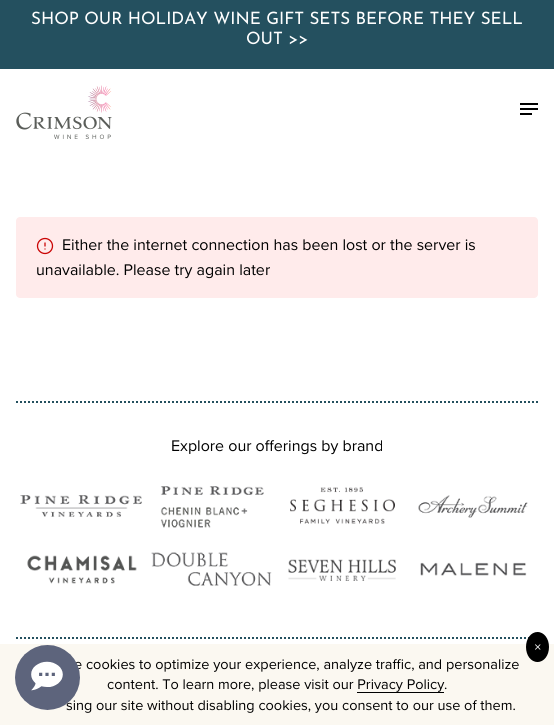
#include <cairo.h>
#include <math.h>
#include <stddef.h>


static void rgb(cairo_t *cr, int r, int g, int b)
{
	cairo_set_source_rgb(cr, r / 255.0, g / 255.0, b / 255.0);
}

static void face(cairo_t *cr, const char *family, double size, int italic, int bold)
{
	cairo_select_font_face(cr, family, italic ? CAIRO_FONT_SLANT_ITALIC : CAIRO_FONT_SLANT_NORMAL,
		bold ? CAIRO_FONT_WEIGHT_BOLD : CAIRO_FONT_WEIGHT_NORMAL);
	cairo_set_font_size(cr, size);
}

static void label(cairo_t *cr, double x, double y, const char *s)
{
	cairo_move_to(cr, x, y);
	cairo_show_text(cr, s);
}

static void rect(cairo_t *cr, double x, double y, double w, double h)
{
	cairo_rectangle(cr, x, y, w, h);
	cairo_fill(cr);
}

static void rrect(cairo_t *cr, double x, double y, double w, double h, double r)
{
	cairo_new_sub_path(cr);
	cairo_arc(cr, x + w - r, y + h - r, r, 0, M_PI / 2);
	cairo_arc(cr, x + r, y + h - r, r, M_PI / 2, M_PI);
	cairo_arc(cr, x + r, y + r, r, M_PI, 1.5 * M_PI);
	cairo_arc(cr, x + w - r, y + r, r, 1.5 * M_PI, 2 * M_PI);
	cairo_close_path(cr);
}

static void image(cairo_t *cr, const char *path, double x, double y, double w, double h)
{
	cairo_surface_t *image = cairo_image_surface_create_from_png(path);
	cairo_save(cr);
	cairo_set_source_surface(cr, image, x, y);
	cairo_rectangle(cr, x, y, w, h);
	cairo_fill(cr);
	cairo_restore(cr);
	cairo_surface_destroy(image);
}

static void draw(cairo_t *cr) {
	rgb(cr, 255, 255, 255);
	cairo_paint(cr);
	rgb(cr, 251, 248, 241);
	rect(cr, 0, 644, 554, 81);
	rgb(cr, 36, 80, 95);
	rect(cr, 0, 0, 554, 69);
	face(cr, "Josefin Sans Thin", 17, 0, 0);
	rgb(cr, 255, 255, 255);
	label(cr, 31, 24, "SHOP OUR HOLIDAY WINE GIFT SETS BEFORE THEY SELL");
	label(cr, 246, 44, "OUT >>");
	image(cr, "image0.png", 16, 85, 96, 54);
	rgb(cr, 0, 0, 0);
	rect(cr, 520, 108, 18, 2);
	rect(cr, 520, 103, 18, 2);
	rect(cr, 520, 113, 12, 2);
	rgb(cr, 255, 235, 235);
	rrect(cr, 16, 217, 522, 81, 4);
	cairo_fill(cr);
	image(cr, "image1.png", 36, 237, 18, 18);
	face(cr, "Proxima Nova", 16, 0, 0);
	rgb(cr, 0, 0, 0);
	label(cr, 62, 250, "Either the internet connection has been lost or the server is");
	label(cr, 36, 275, "unavailable. Please try again later");
	cairo_new_path(cr);
	cairo_move_to(cr, 16, 402);
	cairo_line_to(cr, 538, 402);
	rgb(cr, 36, 80, 95);
	cairo_set_dash(cr, (double[]){2, 2}, 2, 0);
	cairo_stroke(cr);
	cairo_new_path(cr);
	cairo_move_to(cr, 16, 638);
	cairo_line_to(cr, 538, 638);
	cairo_stroke(cr);
	rgb(cr, 0, 0, 0);
	label(cr, 171, 451, "Explore our offerings by brand");
	image(cr, "image2.png", 20, 495, 122, 22);
	image(cr, "image3.png", 160, 486, 104, 42);
	image(cr, "image4.png", 290, 487, 105, 37);
	image(cr, "image5.png", 418, 495, 110, 23);
	image(cr, "image6.png", 27, 555, 110, 29);
	image(cr, "image7.png", 151, 552, 121, 34);
	image(cr, "image8.png", 288, 559, 108, 22);
	image(cr, "image9.png", 420, 562, 107, 14);
	face(cr, "Proxima Nova", 14.5, 0, 0);
	label(cr, 74, 669, "e cookies to optimize your experience, analyze traffic, and personalize");
	label(cr, 66, 710, "sing our site without disabling cookies, you consent to our use of them.");
	image(cr, "image10.png", 15, 645, 65, 65);
	cairo_new_path(cr);
	cairo_move_to(cr, 537.5, 632);
	cairo_curve_to(cr, 544, 632, 549, 638.5, 549, 647);
	cairo_curve_to(cr, 549, 655.5, 544, 662, 537.5, 662);
	cairo_curve_to(cr, 531, 662, 526, 655.5, 526, 647);
	cairo_curve_to(cr, 526, 638.5, 531, 632, 537.5, 632);
	cairo_close_path(cr);
	cairo_fill(cr);
	face(cr, "Proxima Nova", 15, 0, 0);
	rgb(cr, 255, 255, 255);
	label(cr, 534, 652, "×");
	face(cr, "Proxima Nova", 14.5, 0, 0);
	rgb(cr, 0, 0, 0);
	label(cr, 107, 689, "content. To learn more, please visit our Privacy Policy");
	label(cr, 444, 689, ".");
	rect(cr, 357, 692, 87, 1);
}

int main(void) {
	cairo_surface_t *surface = cairo_image_surface_create(CAIRO_FORMAT_RGB24, 554, 725);
	cairo_t *cr = cairo_create(surface);
	cairo_font_options_t *options = cairo_font_options_create();
	cairo_font_options_set_hint_metrics(options, CAIRO_HINT_METRICS_OFF);
	cairo_font_options_set_hint_style(options, CAIRO_HINT_STYLE_NONE);
	cairo_set_font_options(cr, options);
	cairo_set_miter_limit(cr, 4);
	draw(cr);
	cairo_surface_write_to_png(surface, "render.png");
	cairo_font_options_destroy(options);
	cairo_destroy(cr);
	cairo_surface_destroy(surface);
	return 0;
}
